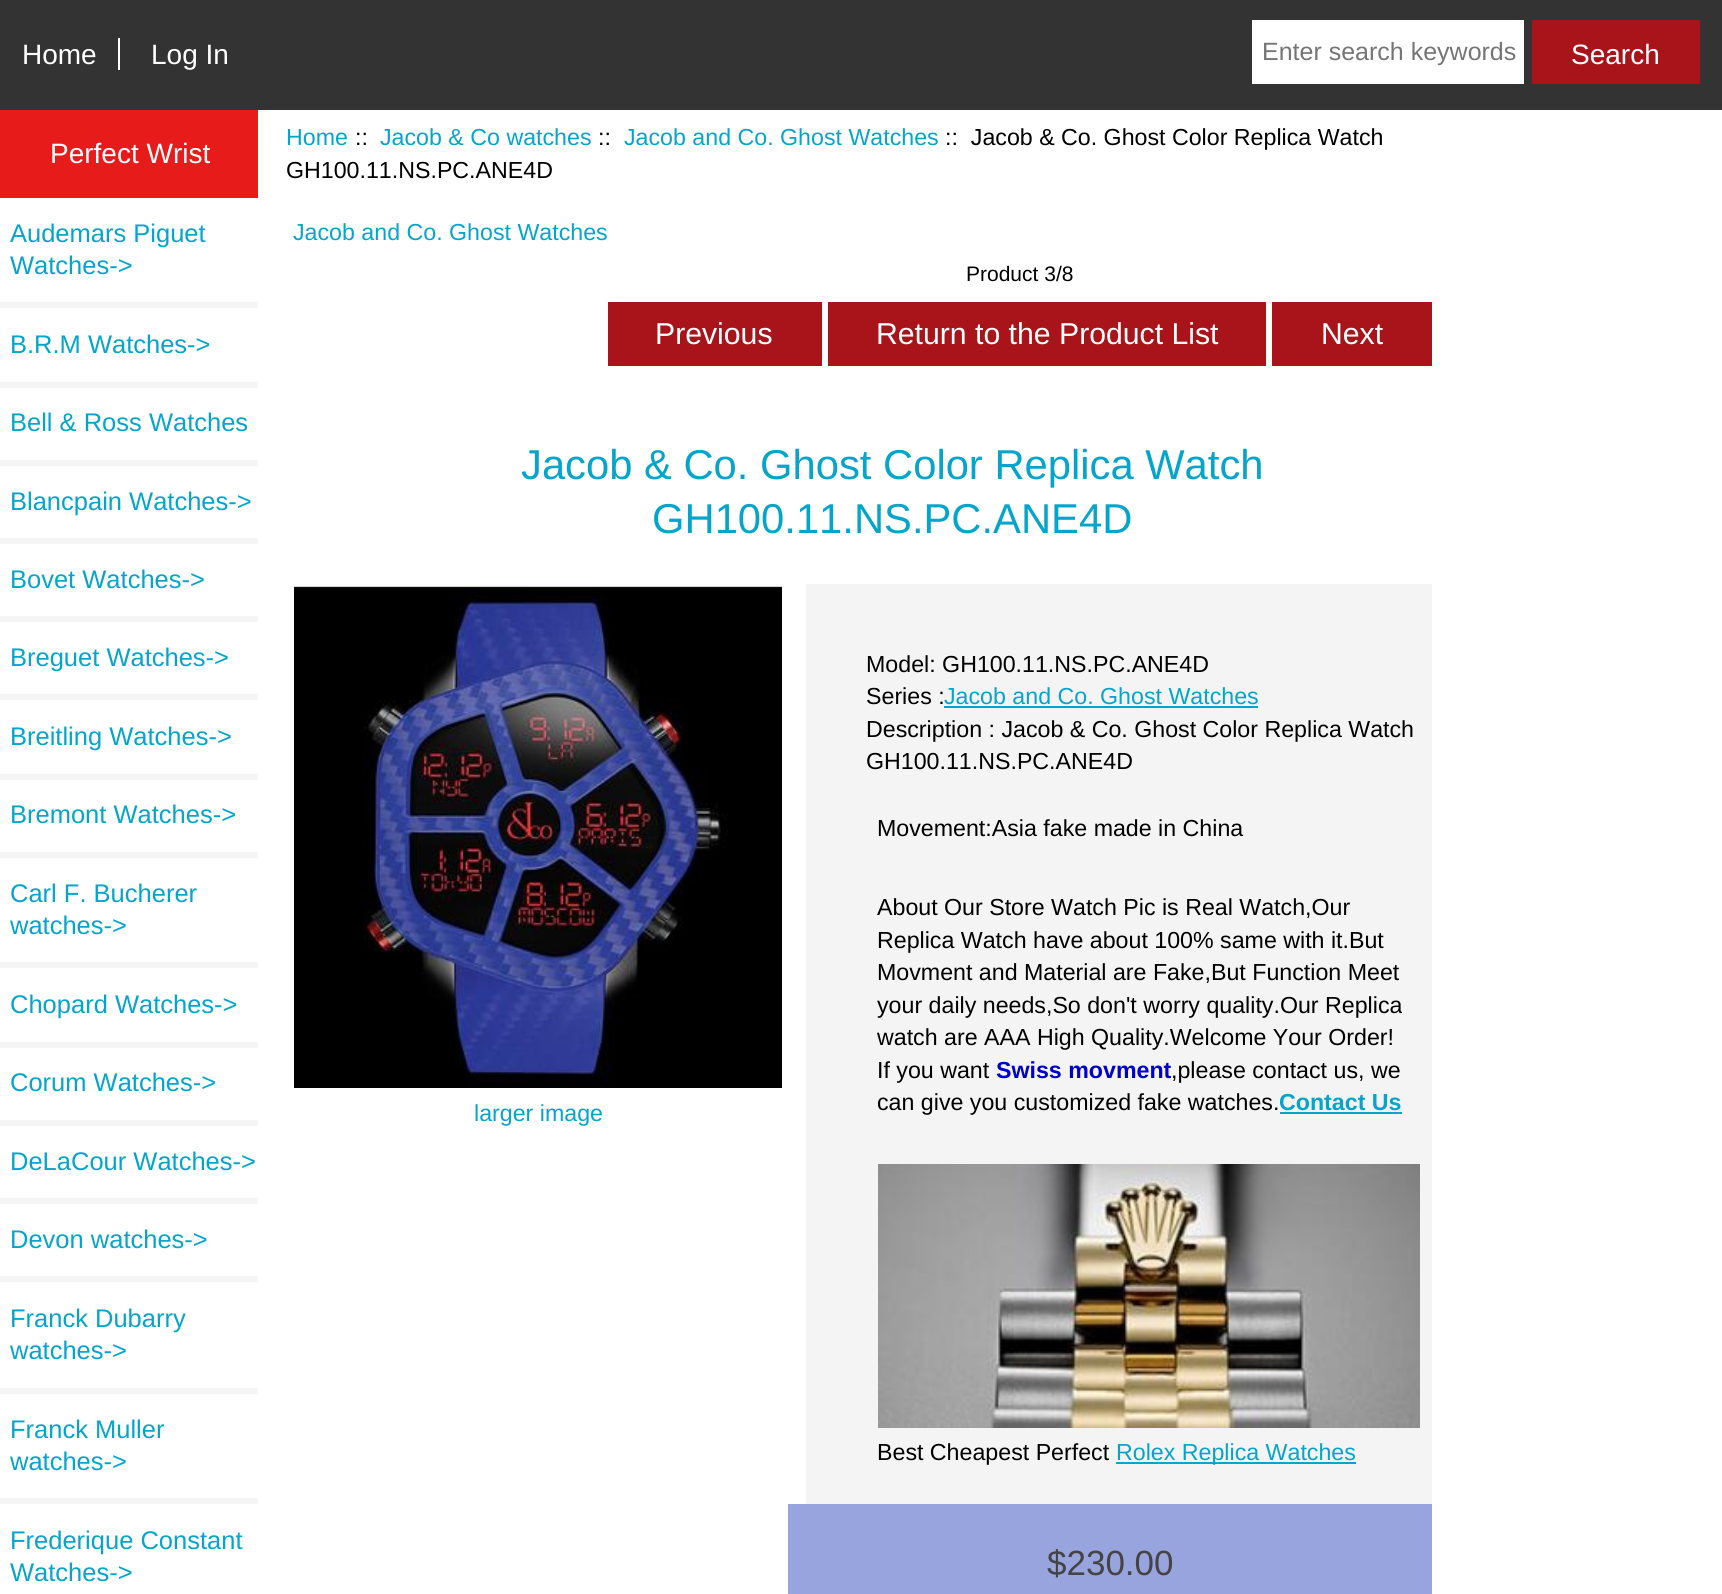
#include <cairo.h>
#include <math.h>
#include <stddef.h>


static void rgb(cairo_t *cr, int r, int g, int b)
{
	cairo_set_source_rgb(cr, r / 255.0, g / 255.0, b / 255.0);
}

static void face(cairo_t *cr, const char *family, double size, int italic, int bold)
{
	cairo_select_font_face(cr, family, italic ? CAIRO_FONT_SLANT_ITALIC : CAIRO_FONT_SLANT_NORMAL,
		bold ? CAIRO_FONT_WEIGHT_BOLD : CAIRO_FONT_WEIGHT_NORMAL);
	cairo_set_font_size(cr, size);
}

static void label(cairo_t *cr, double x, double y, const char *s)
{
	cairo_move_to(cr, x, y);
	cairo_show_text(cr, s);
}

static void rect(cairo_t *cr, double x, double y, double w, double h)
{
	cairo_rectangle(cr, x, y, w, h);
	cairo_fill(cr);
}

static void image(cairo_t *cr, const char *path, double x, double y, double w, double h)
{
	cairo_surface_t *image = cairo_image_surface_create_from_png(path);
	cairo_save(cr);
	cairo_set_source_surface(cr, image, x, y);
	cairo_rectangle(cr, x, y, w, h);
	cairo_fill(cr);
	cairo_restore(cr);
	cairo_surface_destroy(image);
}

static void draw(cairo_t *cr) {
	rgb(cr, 51, 51, 51);
	cairo_paint(cr);
	face(cr, "Liberation Sans", 28, 0, 0);
	rgb(cr, 255, 255, 255);
	label(cr, 22, 64, "Home");
	rect(cr, 118, 38, 2, 32);
	label(cr, 151, 64, "Log In");
	rect(cr, 1252, 20, 272, 64);
	face(cr, "Liberation Sans", 25, 0, 0);
	rgb(cr, 117, 117, 117);
	label(cr, 1262, 60, "Enter search keywords");
	rgb(cr, 169, 20, 27);
	rect(cr, 1532, 20, 168, 64);
	face(cr, "Liberation Sans", 28, 0, 0);
	rgb(cr, 255, 255, 255);
	label(cr, 1571, 64, "Search");
	rect(cr, 0, 110, 1722, 1484);
	rgb(cr, 232, 27, 27);
	rect(cr, 0, 110, 258, 88);
	rgb(cr, 255, 255, 255);
	label(cr, 50, 163, "Perfect Wrist");
	rgb(cr, 245, 245, 245);
	rect(cr, 0, 302, 258, 6);
	face(cr, "Liberation Sans", 25.5, 0, 0);
	rgb(cr, 5, 165, 203);
	label(cr, 10, 242, "Audemars Piguet");
	label(cr, 10, 274, "Watches->");
	rgb(cr, 245, 245, 245);
	rect(cr, 0, 382, 258, 6);
	rgb(cr, 5, 165, 203);
	label(cr, 10, 353, "B.R.M Watches->");
	rgb(cr, 245, 245, 245);
	rect(cr, 0, 460, 258, 6);
	rgb(cr, 5, 165, 203);
	label(cr, 10, 431, "Bell & Ross Watches");
	rgb(cr, 245, 245, 245);
	rect(cr, 0, 538, 258, 6);
	rgb(cr, 5, 165, 203);
	label(cr, 10, 510, "Blancpain Watches->");
	rgb(cr, 245, 245, 245);
	rect(cr, 0, 616, 258, 6);
	rgb(cr, 5, 165, 203);
	label(cr, 10, 588, "Bovet Watches->");
	rgb(cr, 245, 245, 245);
	rect(cr, 0, 694, 258, 6);
	rgb(cr, 5, 165, 203);
	label(cr, 10, 666, "Breguet Watches->");
	rgb(cr, 245, 245, 245);
	rect(cr, 0, 774, 258, 6);
	rgb(cr, 5, 165, 203);
	label(cr, 10, 745, "Breitling Watches->");
	rgb(cr, 245, 245, 245);
	rect(cr, 0, 852, 258, 6);
	rgb(cr, 5, 165, 203);
	label(cr, 10, 823, "Bremont Watches->");
	rgb(cr, 245, 245, 245);
	rect(cr, 0, 962, 258, 6);
	rgb(cr, 5, 165, 203);
	label(cr, 10, 902, "Carl F. Bucherer");
	label(cr, 10, 934, "watches->");
	rgb(cr, 245, 245, 245);
	rect(cr, 0, 1042, 258, 6);
	rgb(cr, 5, 165, 203);
	label(cr, 10, 1013, "Chopard Watches->");
	rgb(cr, 245, 245, 245);
	rect(cr, 0, 1120, 258, 6);
	rgb(cr, 5, 165, 203);
	label(cr, 10, 1091, "Corum Watches->");
	rgb(cr, 245, 245, 245);
	rect(cr, 0, 1198, 258, 6);
	rgb(cr, 5, 165, 203);
	label(cr, 10, 1170, "DeLaCour Watches->");
	rgb(cr, 245, 245, 245);
	rect(cr, 0, 1276, 258, 6);
	rgb(cr, 5, 165, 203);
	label(cr, 10, 1248, "Devon watches->");
	rgb(cr, 245, 245, 245);
	rect(cr, 0, 1388, 258, 6);
	rgb(cr, 5, 165, 203);
	label(cr, 10, 1327, "Franck Dubarry");
	label(cr, 10, 1359, "watches->");
	rgb(cr, 245, 245, 245);
	rect(cr, 0, 1498, 258, 6);
	rgb(cr, 5, 165, 203);
	label(cr, 10, 1438, "Franck Muller");
	label(cr, 10, 1470, "watches->");
	label(cr, 10, 1549, "Frederique Constant");
	label(cr, 10, 1581, "Watches->");
	face(cr, "Liberation Sans", 23.2, 0, 0);
	label(cr, 286, 145, "Home");
	rgb(cr, 0, 0, 0);
	label(cr, 355, 145, "::");
	rgb(cr, 5, 165, 203);
	label(cr, 380, 145, "Jacob & Co watches");
	rgb(cr, 0, 0, 0);
	label(cr, 598, 145, "::");
	rgb(cr, 5, 165, 203);
	label(cr, 624, 145, "Jacob and Co. Ghost Watches");
	rgb(cr, 0, 0, 0);
	label(cr, 945, 145, "::  Jacob & Co. Ghost Color Replica Watch");
	label(cr, 286, 178, "GH100.11.NS.PC.ANE4D");
	rgb(cr, 5, 165, 203);
	label(cr, 293, 240, "Jacob and Co. Ghost Watches");
	face(cr, "Liberation Sans", 21, 0, 0);
	rgb(cr, 0, 0, 0);
	label(cr, 966, 281, "Product 3/8");
	rgb(cr, 169, 20, 27);
	rect(cr, 608, 302, 214, 64);
	face(cr, "Liberation Sans", 30.2, 0, 0);
	rgb(cr, 255, 255, 255);
	label(cr, 655, 344, "Previous");
	rgb(cr, 169, 20, 27);
	rect(cr, 828, 302, 438, 64);
	rgb(cr, 255, 255, 255);
	label(cr, 876, 344, "Return to the Product List");
	rgb(cr, 169, 20, 27);
	rect(cr, 1272, 302, 160, 64);
	rgb(cr, 255, 255, 255);
	label(cr, 1321, 344, "Next");
	face(cr, "Liberation Sans", 41.75, 0, 0);
	rgb(cr, 5, 165, 203);
	label(cr, 521, 479, "Jacob & Co. Ghost Color Replica Watch");
	label(cr, 652, 533, "GH100.11.NS.PC.ANE4D");
	image(cr, "image0.png", 294, 584, 488, 504);
	face(cr, "Liberation Sans", 23.2, 0, 0);
	label(cr, 474, 1121, "larger image");
	rgb(cr, 244, 244, 244);
	rect(cr, 806, 584, 626, 920);
	rgb(cr, 0, 0, 0);
	label(cr, 866, 672, "Model: GH100.11.NS.PC.ANE4D");
	label(cr, 866, 704, "Series :");
	rgb(cr, 5, 165, 203);
	label(cr, 944, 704, "Jacob and Co. Ghost Watches");
	rect(cr, 944, 706, 314, 2);
	rgb(cr, 0, 0, 0);
	label(cr, 866, 737, "Description : Jacob & Co. Ghost Color Replica Watch");
	label(cr, 866, 769, "GH100.11.NS.PC.ANE4D");
	label(cr, 877, 836, "Movement:Asia fake made in China");
	label(cr, 877, 915, "About Our Store Watch Pic is Real Watch,Our");
	label(cr, 877, 948, "Replica Watch have about 100% same with it.But");
	label(cr, 877, 980, "Movment and Material are Fake,But Function Meet");
	label(cr, 877, 1013, "your daily needs,So don't worry quality.Our Replica");
	label(cr, 877, 1045, "watch are AAA High Quality.Welcome Your Order!");
	label(cr, 877, 1078, "If you want");
	face(cr, "Liberation Sans", 23.2, 0, 1);
	rgb(cr, 0, 0, 204);
	label(cr, 996, 1078, "Swiss movment");
	face(cr, "Liberation Sans", 23.2, 0, 0);
	rgb(cr, 0, 0, 0);
	label(cr, 1171, 1078, ",please contact us, we");
	label(cr, 877, 1110, "can give you customized fake watches.");
	face(cr, "Liberation Sans", 23.2, 0, 1);
	rgb(cr, 5, 165, 203);
	label(cr, 1279, 1110, "Contact Us");
	rect(cr, 1280, 1112, 122, 2);
	image(cr, "image1.png", 878, 1164, 542, 264);
	face(cr, "Liberation Sans", 23.2, 0, 0);
	rgb(cr, 0, 0, 0);
	label(cr, 877, 1460, "Best Cheapest Perfect");
	rgb(cr, 5, 165, 203);
	rect(cr, 1116, 1462, 240, 2);
	label(cr, 1116, 1460, "Rolex Replica Watches");
	rgb(cr, 152, 164, 222);
	rect(cr, 788, 1504, 644, 90);
	face(cr, "Liberation Sans", 35, 0, 0);
	rgb(cr, 68, 68, 68);
	label(cr, 1047, 1575, "$230.00");
}

int main(void) {
	cairo_surface_t *surface = cairo_image_surface_create(CAIRO_FORMAT_RGB24, 1722, 1594);
	cairo_t *cr = cairo_create(surface);
	cairo_font_options_t *options = cairo_font_options_create();
	cairo_font_options_set_hint_metrics(options, CAIRO_HINT_METRICS_OFF);
	cairo_font_options_set_hint_style(options, CAIRO_HINT_STYLE_NONE);
	cairo_set_font_options(cr, options);
	cairo_set_miter_limit(cr, 4);
	draw(cr);
	cairo_surface_write_to_png(surface, "render.png");
	cairo_font_options_destroy(options);
	cairo_destroy(cr);
	cairo_surface_destroy(surface);
	return 0;
}
